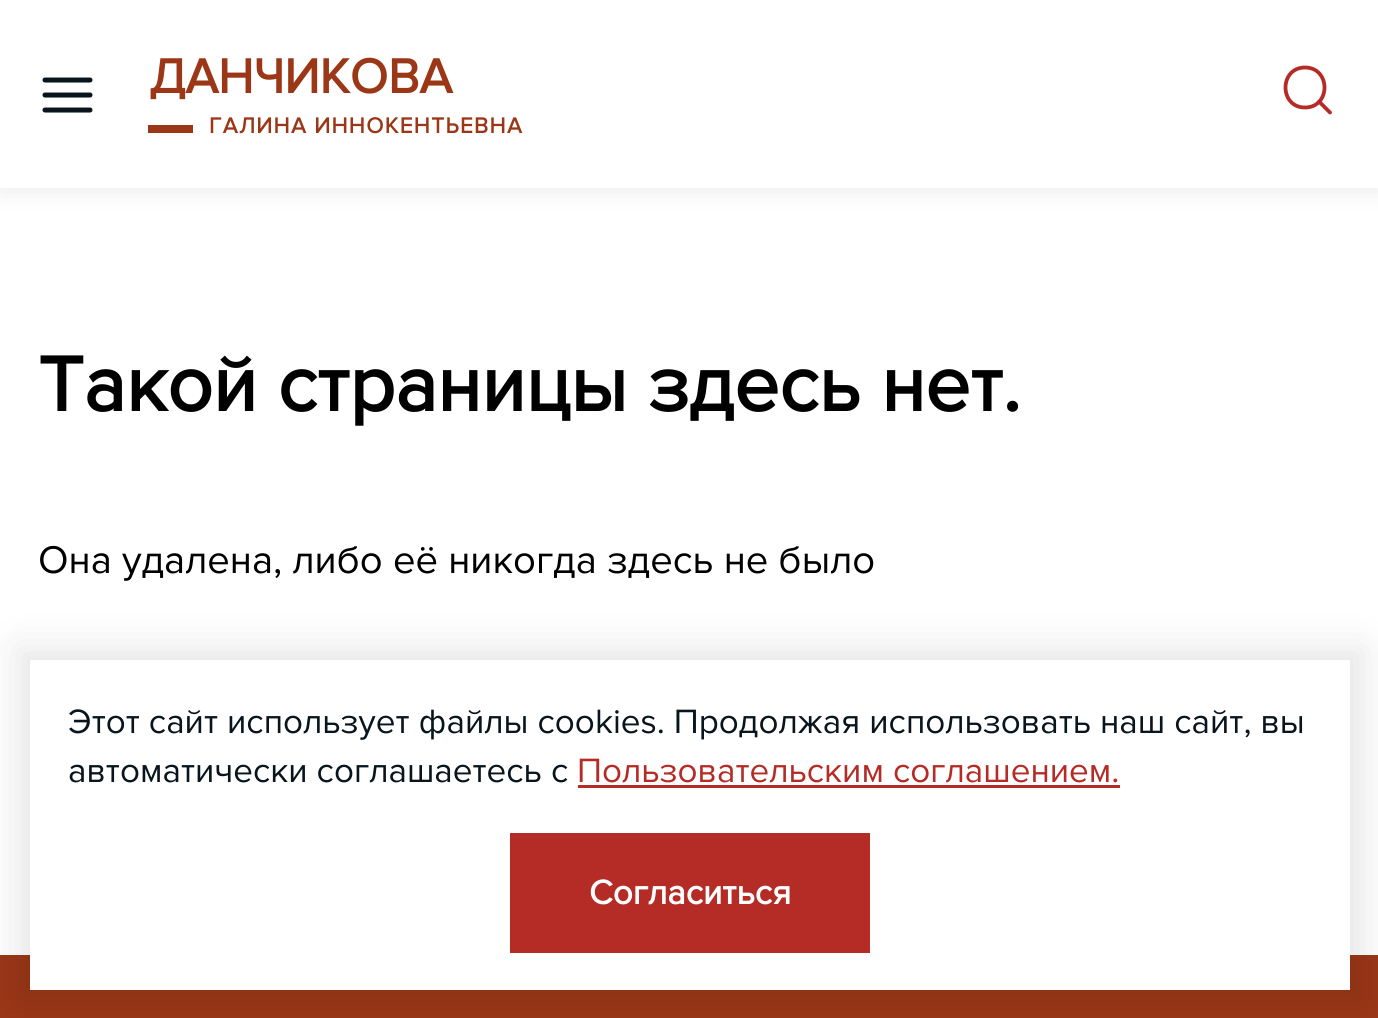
#include <cairo.h>
#include <math.h>
#include <stddef.h>


static void rgb(cairo_t *cr, int r, int g, int b)
{
	cairo_set_source_rgb(cr, r / 255.0, g / 255.0, b / 255.0);
}

static void face(cairo_t *cr, const char *family, double size, int italic, int bold)
{
	cairo_select_font_face(cr, family, italic ? CAIRO_FONT_SLANT_ITALIC : CAIRO_FONT_SLANT_NORMAL,
		bold ? CAIRO_FONT_WEIGHT_BOLD : CAIRO_FONT_WEIGHT_NORMAL);
	cairo_set_font_size(cr, size);
}

static void label(cairo_t *cr, double x, double y, const char *s)
{
	cairo_move_to(cr, x, y);
	cairo_show_text(cr, s);
}

static void tracked(cairo_t *cr, double x, double y, const char *s, double letter, double word)
{
	cairo_move_to(cr, x, y);
	while (*s) {
		char ch[5] = {0};
		int n = 0;
		do ch[n++] = *s++; while ((*s & 0xC0) == 0x80);
		cairo_show_text(cr, ch);
		cairo_rel_move_to(cr, letter + word * (*ch == ' '), 0);
	}
}

static void rect(cairo_t *cr, double x, double y, double w, double h)
{
	cairo_rectangle(cr, x, y, w, h);
	cairo_fill(cr);
}

static void rrect(cairo_t *cr, double x, double y, double w, double h, double r)
{
	cairo_new_sub_path(cr);
	cairo_arc(cr, x + w - r, y + h - r, r, 0, M_PI / 2);
	cairo_arc(cr, x + r, y + h - r, r, M_PI / 2, M_PI);
	cairo_arc(cr, x + r, y + r, r, M_PI, 1.5 * M_PI);
	cairo_arc(cr, x + w - r, y + r, r, 1.5 * M_PI, 2 * M_PI);
	cairo_close_path(cr);
}

static void soft_shadow(cairo_t *cr, double x, double y, double w, double h, double r, double blur, double alpha)
{
	cairo_push_group_with_content(cr, CAIRO_CONTENT_ALPHA);
	cairo_set_operator(cr, CAIRO_OPERATOR_SOURCE);
	for (int i = 15; i >= -15 && fmin(w, h) + blur * i / 3 > 0; i -= 2) {
		double e = blur * i / 6;
		cairo_set_source_rgba(cr, 0, 0, 0, alpha * erfc((i - 1) / 8.5) / 2);
		rrect(cr, x - e, y - e, w + 2 * e, h + 2 * e, fmax(0, fmin(r + e + blur * .6, fmin(w, h) / 2 + e)));
		cairo_fill(cr);
	}
	cairo_pattern_t *soft = cairo_pop_group(cr);
	cairo_mask(cr, soft);
	cairo_pattern_destroy(soft);
}

static void draw(cairo_t *cr) {
	rgb(cr, 255, 255, 255);
	cairo_paint(cr);
	rgb(cr, 0, 0, 0);
	soft_shadow(cr, 0, 0, 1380, 188, 0, 12.5, 0.1);
	rgb(cr, 255, 255, 255);
	rect(cr, 0, 0, 1378, 188);
	cairo_new_path(cr);
	cairo_move_to(cr, 45, 95);
	cairo_line_to(cr, 90, 95);
	cairo_move_to(cr, 45, 80);
	cairo_line_to(cr, 90, 80);
	cairo_move_to(cr, 45, 110);
	cairo_line_to(cr, 90, 110);
	rgb(cr, 8, 21, 29);
	cairo_set_line_width(cr, 5);
	cairo_set_line_cap(cr, CAIRO_LINE_CAP_ROUND);
	cairo_set_line_join(cr, CAIRO_LINE_JOIN_ROUND);
	cairo_stroke(cr);
	face(cr, "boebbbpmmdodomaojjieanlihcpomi", 50, 0, 1);
	rgb(cr, 155, 55, 23);
	label(cr, 149, 93, "ДАНЧИКОВА");
	rect(cr, 148, 125, 45, 8);
	face(cr, "boebbbpmmdodomaojjieanlihcpomi", 22.5, 0, 1);
	tracked(cr, 209, 133, "ГАЛИНА ИННОКЕНТЬЕВНА", 1.35, 0);
	cairo_new_path(cr);
	cairo_move_to(cr, 1305, 107.5);
	cairo_curve_to(cr, 1331, 107.5, 1331, 67.5, 1305, 67.5);
	cairo_curve_to(cr, 1279, 67.5, 1279, 107.5, 1305, 107.5);
	cairo_close_path(cr);
	cairo_move_to(cr, 1330, 112.5);
	cairo_line_to(cr, 1319, 101.5);
	rgb(cr, 181, 44, 38);
	cairo_set_line_width(cr, 3.8);
	cairo_stroke(cr);
	face(cr, "boebbbpmmdodomaojjieanlihcpomi", 80, 0, 1);
	rgb(cr, 0, 0, 0);
	label(cr, 38, 411, "Такой страницы здесь нет.");
	face(cr, "boebbbpmmdodomaojjieanlihcpomi", 40, 0, 0);
	label(cr, 38, 573, "Она удалена, либо её никогда здесь не было");
	rgb(cr, 155, 55, 23);
	rect(cr, 0, 955, 1378, 63);
	rgb(cr, 0, 0, 0);
	soft_shadow(cr, 18, 648, 1345, 355, 0, 19, 0.1);
	rgb(cr, 255, 255, 255);
	rect(cr, 30, 660, 1320, 330);
	face(cr, "boebbbpmmdodomaojjieanlihcpomi", 35, 0, 0);
	rgb(cr, 8, 21, 29);
	label(cr, 68, 733, "Этот сайт использует файлы cookies. Продолжая использовать наш сайт, вы");
	label(cr, 68, 782, "автоматически соглашаетесь с");
	rgb(cr, 181, 44, 38);
	label(cr, 577, 782, "Пользовательским соглашением.");
	rect(cr, 578, 785, 542, 3);
	rect(cr, 510, 833, 360, 120);
	face(cr, "boebbbpmmdodomaojjieanlihcpomi", 35, 0, 1);
	rgb(cr, 255, 255, 255);
	label(cr, 589, 904, "Согласиться");
}

int main(void) {
	cairo_surface_t *surface = cairo_image_surface_create(CAIRO_FORMAT_RGB24, 1378, 1018);
	cairo_t *cr = cairo_create(surface);
	cairo_font_options_t *options = cairo_font_options_create();
	cairo_font_options_set_hint_metrics(options, CAIRO_HINT_METRICS_OFF);
	cairo_font_options_set_hint_style(options, CAIRO_HINT_STYLE_NONE);
	cairo_set_font_options(cr, options);
	cairo_set_miter_limit(cr, 4);
	draw(cr);
	cairo_surface_write_to_png(surface, "render.png");
	cairo_font_options_destroy(options);
	cairo_destroy(cr);
	cairo_surface_destroy(surface);
	return 0;
}
